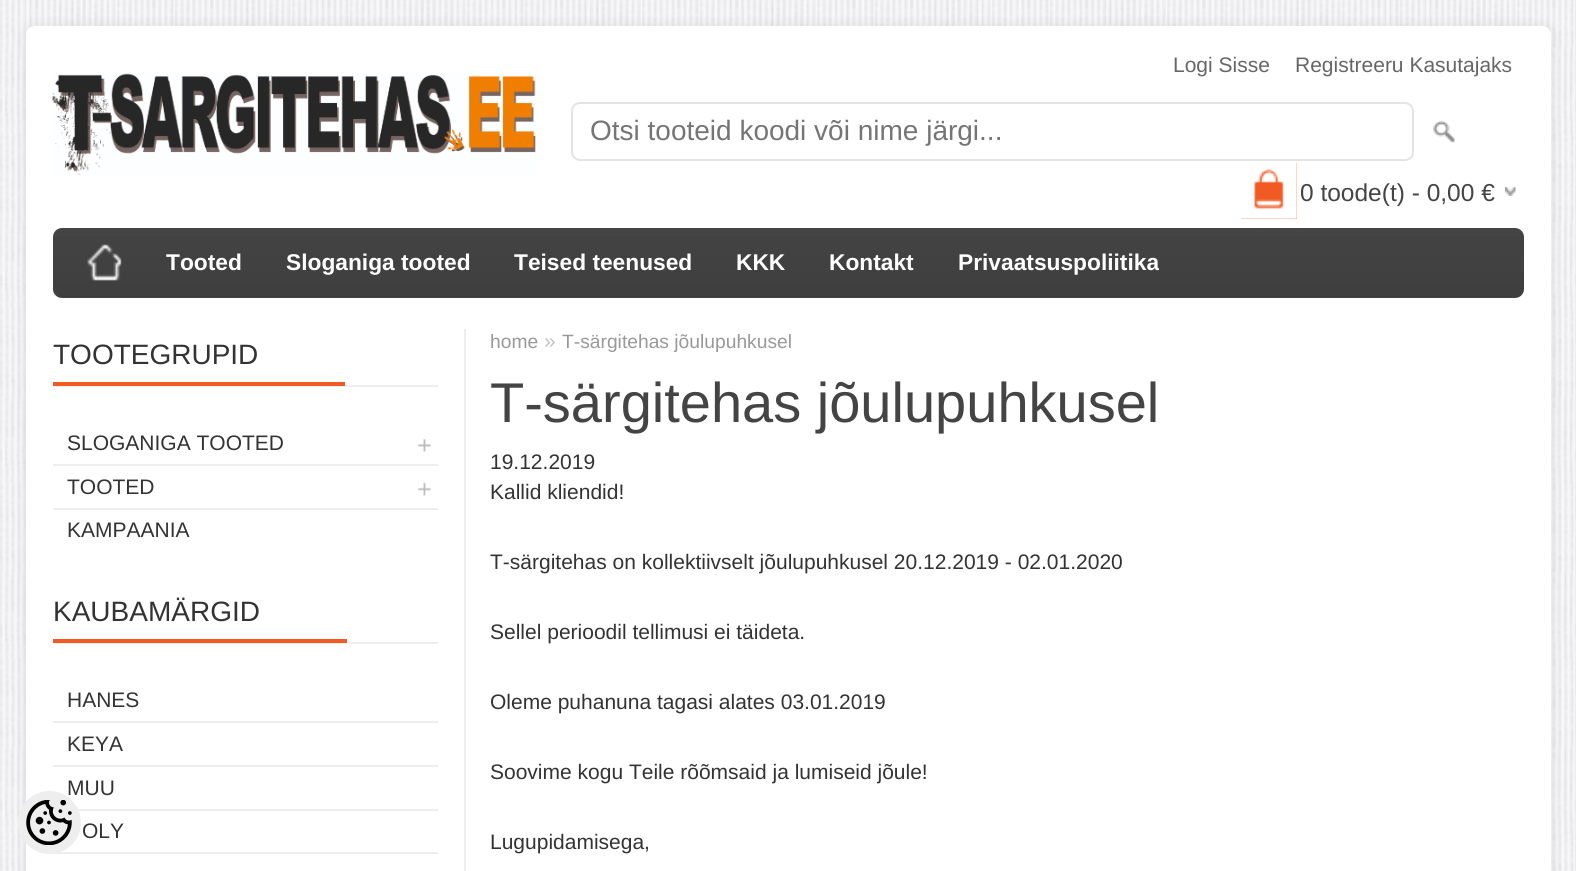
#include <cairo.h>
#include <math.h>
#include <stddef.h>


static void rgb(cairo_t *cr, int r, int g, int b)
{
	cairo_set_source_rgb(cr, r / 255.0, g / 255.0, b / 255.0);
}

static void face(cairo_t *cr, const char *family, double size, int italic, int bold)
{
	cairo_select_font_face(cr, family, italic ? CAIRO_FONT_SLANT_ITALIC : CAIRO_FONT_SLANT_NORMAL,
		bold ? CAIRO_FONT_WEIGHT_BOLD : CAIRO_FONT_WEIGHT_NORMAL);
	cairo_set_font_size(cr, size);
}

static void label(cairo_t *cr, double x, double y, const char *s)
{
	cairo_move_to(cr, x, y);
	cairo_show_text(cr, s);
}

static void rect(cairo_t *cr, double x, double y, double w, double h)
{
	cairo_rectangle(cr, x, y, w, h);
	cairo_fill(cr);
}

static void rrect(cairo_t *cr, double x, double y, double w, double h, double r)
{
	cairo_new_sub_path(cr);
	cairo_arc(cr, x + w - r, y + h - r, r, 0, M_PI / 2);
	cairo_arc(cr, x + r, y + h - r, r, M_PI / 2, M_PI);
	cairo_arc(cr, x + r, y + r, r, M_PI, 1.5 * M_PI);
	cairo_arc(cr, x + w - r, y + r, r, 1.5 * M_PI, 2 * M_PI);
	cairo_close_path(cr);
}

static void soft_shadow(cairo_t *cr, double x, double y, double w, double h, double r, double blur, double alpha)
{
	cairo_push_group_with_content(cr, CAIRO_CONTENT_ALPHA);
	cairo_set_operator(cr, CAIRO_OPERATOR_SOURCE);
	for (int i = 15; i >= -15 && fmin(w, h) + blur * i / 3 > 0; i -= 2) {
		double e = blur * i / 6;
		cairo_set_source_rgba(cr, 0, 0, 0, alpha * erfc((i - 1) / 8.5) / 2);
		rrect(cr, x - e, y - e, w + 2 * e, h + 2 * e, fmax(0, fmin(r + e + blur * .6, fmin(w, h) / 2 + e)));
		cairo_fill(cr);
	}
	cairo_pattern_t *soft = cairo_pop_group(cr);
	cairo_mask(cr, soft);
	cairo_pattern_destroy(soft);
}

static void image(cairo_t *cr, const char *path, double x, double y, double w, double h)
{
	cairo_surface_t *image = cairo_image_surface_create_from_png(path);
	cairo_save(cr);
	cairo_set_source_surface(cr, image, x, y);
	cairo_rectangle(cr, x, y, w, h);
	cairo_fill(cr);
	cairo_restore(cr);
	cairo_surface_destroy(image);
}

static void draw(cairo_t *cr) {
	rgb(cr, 248, 248, 250);
	cairo_paint(cr);
	image(cr, "image0.png", 0, 0, 1576, 871);
	rgb(cr, 0, 0, 0);
	soft_shadow(cr, 26, 26, 1525, 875, 9, 7, 0.08);
	rgb(cr, 255, 255, 255);
	cairo_new_path(cr);
	cairo_move_to(cr, 35, 26);
	cairo_line_to(cr, 1542, 26);
	cairo_curve_to(cr, 1547, 26, 1551, 30, 1551, 35);
	cairo_line_to(cr, 1551, 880);
	cairo_line_to(cr, 26, 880);
	cairo_line_to(cr, 26, 35);
	cairo_curve_to(cr, 26, 30, 30, 26, 35, 26);
	cairo_close_path(cr);
	cairo_fill(cr);
	face(cr, "Liberation Sans", 21, 0, 0);
	rgb(cr, 51, 51, 51);
	label(cr, 67, 795, "MUU");
	rgb(cr, 238, 238, 238);
	rect(cr, 78, 809, 360, 2);
	rect(cr, 53, 852, 385, 2);
	cairo_new_path(cr);
	cairo_arc(cr, 49.5, 822.5, 31.5, 0, 2 * M_PI);
	cairo_fill(cr);
	image(cr, "image1.png", 26, 800, 46, 45);
	rgb(cr, 102, 102, 102);
	label(cr, 1173, 72, "Logi Sisse");
	label(cr, 1295, 72, "Registreeru Kasutajaks");
	image(cr, "image2.png", 52, 73, 484, 102);
	rrect(cr, 572, 103, 841, 57, 8);
	rgb(cr, 228, 228, 228);
	cairo_stroke(cr);
	face(cr, "Liberation Sans", 28, 0, 0);
	rgb(cr, 117, 117, 117);
	label(cr, 590, 140, "Otsi tooteid koodi või nime järgi...");
	image(cr, "image3.png", 1433, 120, 23, 23);
	rgb(cr, 241, 90, 35);
	rect(cr, 1241, 163, 56, 56);
	image(cr, "image4.png", 1241, 163, 56, 56);
	image(cr, "image5.png", 1505, 187, 11, 9);
	face(cr, "Liberation Sans", 24.5, 0, 0);
	rgb(cr, 68, 68, 68);
	label(cr, 1300, 201, "0 toode(t) - 0,00 €");
	rrect(cr, 53, 228, 1471, 70, 9);
	cairo_fill(cr);
	image(cr, "image6.png", 53, 236, 1471, 61);
	image(cr, "image7.png", 87, 244, 35, 37);
	face(cr, "Liberation Sans", 22.75, 0, 1);
	rgb(cr, 255, 255, 255);
	label(cr, 166, 270, "Tooted");
	label(cr, 286, 270, "Sloganiga tooted");
	label(cr, 514, 270, "Teised teenused");
	label(cr, 736, 270, "KKK");
	label(cr, 829, 270, "Kontakt");
	label(cr, 958, 270, "Privaatsuspoliitika");
	rgb(cr, 238, 238, 238);
	rect(cr, 464, 329, 2, 542);
	rect(cr, 53, 385, 385, 2);
	rgb(cr, 241, 90, 35);
	rect(cr, 53, 382, 292, 4);
	face(cr, "Liberation Sans", 28, 0, 0);
	rgb(cr, 51, 51, 51);
	label(cr, 53, 364, "TOOTEGRUPID");
	face(cr, "Liberation Sans", 21, 0, 0);
	label(cr, 67, 450, "SLOGANIGA TOOTED");
	image(cr, "image8.png", 417, 438, 14, 14);
	rgb(cr, 238, 238, 238);
	rect(cr, 53, 464, 385, 2);
	rgb(cr, 51, 51, 51);
	label(cr, 67, 494, "TOOTED");
	image(cr, "image9.png", 417, 482, 14, 14);
	rgb(cr, 238, 238, 238);
	rect(cr, 53, 508, 385, 2);
	rgb(cr, 51, 51, 51);
	label(cr, 67, 537, "KAMPAANIA");
	rgb(cr, 238, 238, 238);
	rect(cr, 53, 642, 385, 2);
	rgb(cr, 241, 90, 35);
	rect(cr, 53, 639, 294, 4);
	face(cr, "Liberation Sans", 28, 0, 0);
	rgb(cr, 51, 51, 51);
	label(cr, 53, 621, "KAUBAMÄRGID");
	face(cr, "Liberation Sans", 21, 0, 0);
	label(cr, 67, 707, "HANES");
	rgb(cr, 238, 238, 238);
	rect(cr, 53, 721, 385, 2);
	rgb(cr, 51, 51, 51);
	label(cr, 67, 751, "KEYA");
	rgb(cr, 238, 238, 238);
	rect(cr, 53, 765, 385, 2);
	rgb(cr, 51, 51, 51);
	label(cr, 82, 838, "OLY");
	face(cr, "Liberation Sans", 19.25, 0, 0);
	rgb(cr, 153, 153, 153);
	label(cr, 490, 348, "home");
	face(cr, "Liberation Sans", 21, 0, 0);
	rgb(cr, 194, 194, 194);
	label(cr, 544, 348, "»");
	face(cr, "Liberation Sans", 19.25, 0, 0);
	rgb(cr, 153, 153, 153);
	label(cr, 562, 348, "T-särgitehas jõulupuhkusel");
	face(cr, "Liberation Sans", 56, 0, 0);
	rgb(cr, 68, 68, 68);
	label(cr, 490, 422, "T-särgitehas jõulupuhkusel");
	face(cr, "Liberation Sans", 21, 0, 0);
	rgb(cr, 51, 51, 51);
	label(cr, 490, 469, "19.12.2019");
	label(cr, 490, 499, "Kallid kliendid!");
	label(cr, 490, 569, "T-särgitehas on kollektiivselt jõulupuhkusel 20.12.2019 - 02.01.2020");
	label(cr, 490, 639, "Sellel perioodil tellimusi ei täideta.");
	label(cr, 490, 709, "Oleme puhanuna tagasi alates 03.01.2019");
	label(cr, 490, 779, "Soovime kogu Teile rõõmsaid ja lumiseid jõule!");
	label(cr, 490, 849, "Lugupidamisega,");
}

int main(void) {
	cairo_surface_t *surface = cairo_image_surface_create(CAIRO_FORMAT_RGB24, 1576, 871);
	cairo_t *cr = cairo_create(surface);
	cairo_font_options_t *options = cairo_font_options_create();
	cairo_font_options_set_hint_metrics(options, CAIRO_HINT_METRICS_OFF);
	cairo_font_options_set_hint_style(options, CAIRO_HINT_STYLE_NONE);
	cairo_set_font_options(cr, options);
	cairo_set_miter_limit(cr, 4);
	draw(cr);
	cairo_surface_write_to_png(surface, "render.png");
	cairo_font_options_destroy(options);
	cairo_destroy(cr);
	cairo_surface_destroy(surface);
	return 0;
}
